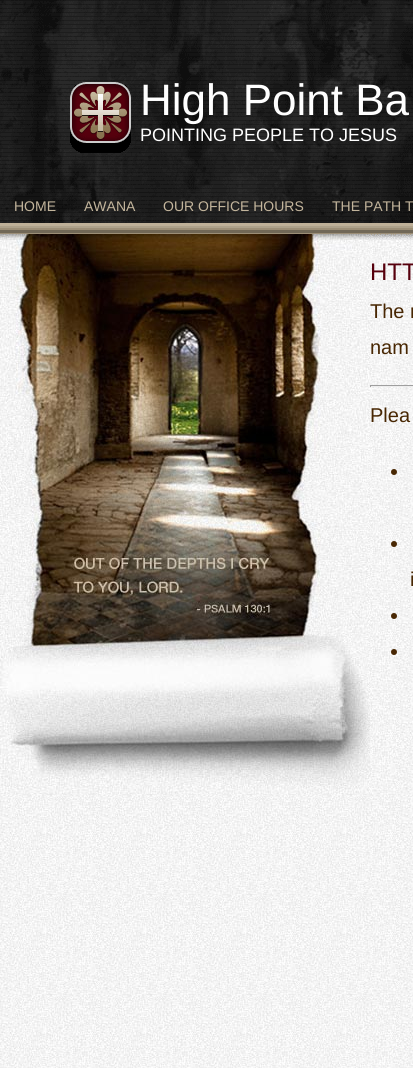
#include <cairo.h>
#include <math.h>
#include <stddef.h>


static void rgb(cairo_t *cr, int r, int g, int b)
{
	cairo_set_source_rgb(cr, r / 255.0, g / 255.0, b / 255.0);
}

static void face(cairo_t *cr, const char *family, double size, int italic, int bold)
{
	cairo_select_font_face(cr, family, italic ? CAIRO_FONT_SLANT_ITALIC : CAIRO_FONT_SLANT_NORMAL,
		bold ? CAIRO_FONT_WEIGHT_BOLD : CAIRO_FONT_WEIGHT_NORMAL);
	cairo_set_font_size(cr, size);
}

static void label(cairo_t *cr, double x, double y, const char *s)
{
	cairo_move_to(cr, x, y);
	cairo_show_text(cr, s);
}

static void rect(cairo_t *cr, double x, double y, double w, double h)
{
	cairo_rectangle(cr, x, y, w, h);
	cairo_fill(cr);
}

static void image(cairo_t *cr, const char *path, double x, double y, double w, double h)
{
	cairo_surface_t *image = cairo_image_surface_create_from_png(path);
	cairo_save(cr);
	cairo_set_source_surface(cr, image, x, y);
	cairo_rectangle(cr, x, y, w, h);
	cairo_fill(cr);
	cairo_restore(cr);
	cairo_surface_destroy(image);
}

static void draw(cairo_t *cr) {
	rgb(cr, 255, 255, 255);
	cairo_paint(cr);
	image(cr, "image0.png", 0, 240, 413, 828);
	image(cr, "image1.png", 0, 0, 413, 240);
	image(cr, "image2.png", 70, 82, 61, 71);
	face(cr, "Liberation Sans", 44, 0, 0);
	rgb(cr, 255, 255, 255);
	label(cr, 140, 115, "High Point Ba");
	face(cr, "Liberation Sans", 18, 0, 0);
	label(cr, 140, 141, "POINTING PEOPLE TO JESUS");
	face(cr, "Liberation Sans", 14, 0, 0);
	rgb(cr, 195, 181, 156);
	label(cr, 14, 211, "HOME");
	label(cr, 84, 211, "AWANA");
	label(cr, 163, 211, "OUR OFFICE HOURS");
	label(cr, 332, 211, "THE PATH T");
	image(cr, "image3.png", 0, 234, 370, 560);
	face(cr, "Liberation Sans", 24, 0, 0);
	rgb(cr, 86, 0, 13);
	label(cr, 370, 280, "HTT");
	face(cr, "Liberation Sans", 20, 0, 0);
	rgb(cr, 72, 39, 3);
	label(cr, 370, 318, "The r");
	label(cr, 370, 354, "nam");
	rgb(cr, 159, 159, 159);
	rect(cr, 370, 385, 43, 1);
	rgb(cr, 238, 238, 238);
	rect(cr, 370, 386, 43, 1);
	rgb(cr, 159, 159, 159);
	rect(cr, 370, 385, 1, 2);
	rgb(cr, 72, 39, 3);
	label(cr, 370, 422, "Plea");
	cairo_new_path(cr);
	cairo_arc(cr, 394, 472, 3, 0, 2 * M_PI);
	cairo_fill(cr);
	cairo_arc(cr, 394, 544, 3, 0, 2 * M_PI);
	cairo_fill(cr);
	label(cr, 410, 586, "i");
	cairo_new_path(cr);
	cairo_arc(cr, 394, 616, 3, 0, 2 * M_PI);
	cairo_fill(cr);
	cairo_arc(cr, 394, 652, 3, 0, 2 * M_PI);
	cairo_fill(cr);
}

int main(void) {
	cairo_surface_t *surface = cairo_image_surface_create(CAIRO_FORMAT_RGB24, 413, 1068);
	cairo_t *cr = cairo_create(surface);
	cairo_font_options_t *options = cairo_font_options_create();
	cairo_font_options_set_hint_metrics(options, CAIRO_HINT_METRICS_OFF);
	cairo_font_options_set_hint_style(options, CAIRO_HINT_STYLE_NONE);
	cairo_set_font_options(cr, options);
	cairo_set_miter_limit(cr, 4);
	draw(cr);
	cairo_surface_write_to_png(surface, "render.png");
	cairo_font_options_destroy(options);
	cairo_destroy(cr);
	cairo_surface_destroy(surface);
	return 0;
}
